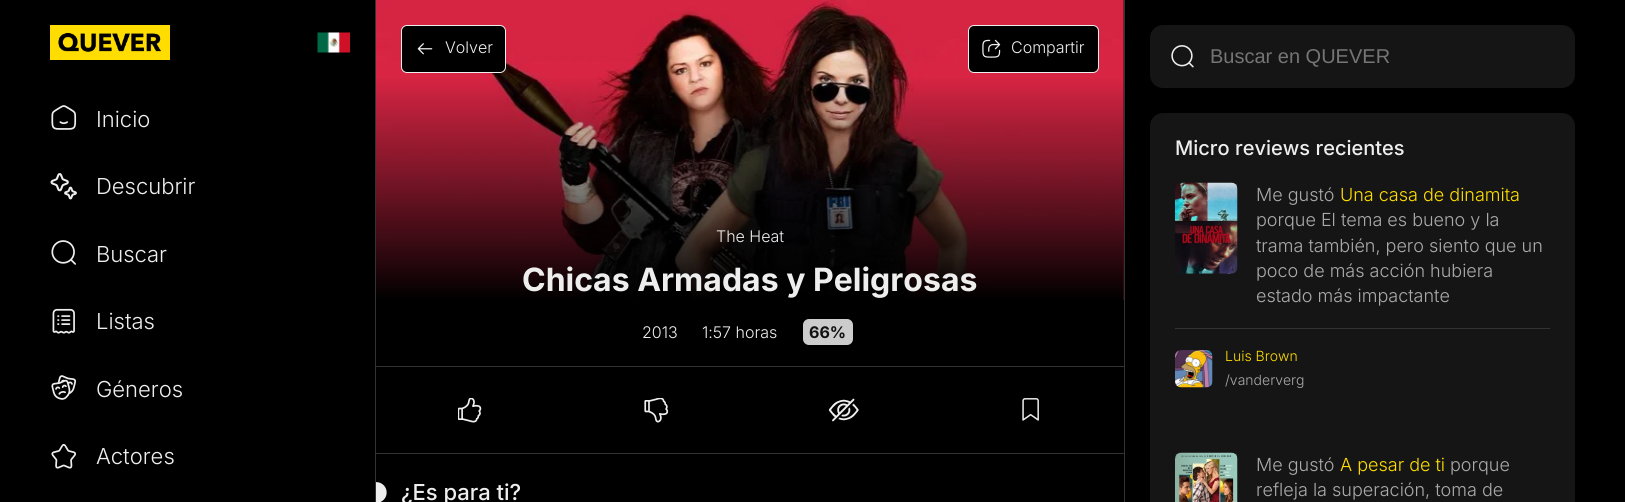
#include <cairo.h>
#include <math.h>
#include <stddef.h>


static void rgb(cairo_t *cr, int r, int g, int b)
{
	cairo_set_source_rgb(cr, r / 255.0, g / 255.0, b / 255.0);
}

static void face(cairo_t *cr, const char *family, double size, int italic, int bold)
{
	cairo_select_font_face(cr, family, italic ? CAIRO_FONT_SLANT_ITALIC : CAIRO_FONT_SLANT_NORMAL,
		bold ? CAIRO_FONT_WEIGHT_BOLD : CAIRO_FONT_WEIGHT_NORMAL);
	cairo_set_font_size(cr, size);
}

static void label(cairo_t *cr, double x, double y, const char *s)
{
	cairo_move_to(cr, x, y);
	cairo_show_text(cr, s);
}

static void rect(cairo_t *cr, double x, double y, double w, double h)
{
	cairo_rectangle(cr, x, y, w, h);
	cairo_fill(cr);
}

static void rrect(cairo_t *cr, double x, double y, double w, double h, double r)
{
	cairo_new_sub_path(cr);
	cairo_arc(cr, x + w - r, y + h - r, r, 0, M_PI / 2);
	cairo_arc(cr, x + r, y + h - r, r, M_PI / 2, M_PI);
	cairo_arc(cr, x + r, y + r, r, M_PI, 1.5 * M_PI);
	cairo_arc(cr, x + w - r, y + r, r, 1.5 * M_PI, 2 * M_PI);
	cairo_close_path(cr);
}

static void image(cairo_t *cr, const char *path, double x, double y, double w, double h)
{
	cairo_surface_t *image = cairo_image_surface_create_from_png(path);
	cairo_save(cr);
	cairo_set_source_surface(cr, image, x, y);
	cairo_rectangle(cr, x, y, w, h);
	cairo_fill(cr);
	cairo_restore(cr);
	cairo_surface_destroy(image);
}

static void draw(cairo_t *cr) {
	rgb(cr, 0, 0, 0);
	cairo_paint(cr);
	image(cr, "image0.png", 50, 25, 120, 35);
	image(cr, "image1.png", 317, 32, 33, 21);
	image(cr, "image2.png", 51, 105, 26, 25);
	face(cr, "Inter Light", 22, 0, 0);
	rgb(cr, 238, 238, 238);
	label(cr, 96, 127, "Inicio");
	image(cr, "image3.png", 50, 173, 27, 27);
	label(cr, 96, 194, "Descubrir");
	image(cr, "image4.png", 51, 240, 25, 25);
	label(cr, 96, 262, "Buscar");
	image(cr, "image5.png", 52, 308, 23, 26);
	label(cr, 96, 329, "Listas");
	image(cr, "image6.png", 51, 375, 26, 25);
	label(cr, 96, 397, "Géneros");
	image(cr, "image7.png", 51, 443, 26, 26);
	label(cr, 96, 464, "Actores");
	rgb(cr, 51, 51, 51);
	rect(cr, 1124, 0, 1, 502);
	rect(cr, 375, 0, 1, 502);
	image(cr, "image8.png", 376, 0, 748, 300);
	rgb(cr, 0, 0, 0);
	rrect(cr, 401.5, 25.5, 104, 47, 5.5);
	cairo_fill_preserve(cr);
	rgb(cr, 238, 238, 238);
	cairo_set_line_width(cr, 1);
	cairo_stroke(cr);
	image(cr, "image9.png", 417, 43, 16, 12);
	face(cr, "Inter Light", 16, 0, 0);
	label(cr, 445, 53, "Volver");
	rgb(cr, 0, 0, 0);
	rrect(cr, 968.5, 25.5, 130, 47, 5.5);
	cairo_fill_preserve(cr);
	rgb(cr, 238, 238, 238);
	cairo_stroke(cr);
	image(cr, "image10.png", 982, 39, 19, 19);
	label(cr, 1011, 53, "Compartir");
	label(cr, 716, 242, "The Heat");
	face(cr, "Inter", 32, 0, 1);
	label(cr, 522, 291, "Chicas Armadas y Peligrosas");
	face(cr, "Inter Light", 16, 0, 0);
	label(cr, 642, 338, "2013");
	label(cr, 702, 338, "1:57 horas");
	rgb(cr, 204, 204, 204);
	rrect(cr, 803, 319, 50, 26, 6);
	cairo_fill(cr);
	face(cr, "Inter", 16, 0, 1);
	rgb(cr, 17, 17, 17);
	label(cr, 809, 338, "66%");
	rgb(cr, 51, 51, 51);
	rect(cr, 376, 366, 748, 1);
	rect(cr, 376, 453, 748, 1);
	image(cr, "image11.png", 458, 398, 24, 25);
	image(cr, "image12.png", 644, 398, 25, 25);
	image(cr, "image13.png", 829, 398, 30, 24);
	image(cr, "image14.png", 1022, 398, 17, 23);
	image(cr, "image15.png", 376, 482, 11, 20);
	face(cr, "Inter Medium", 22, 0, 0);
	rgb(cr, 238, 238, 238);
	label(cr, 401, 500, "¿Es para ti?");
	rgb(cr, 21, 21, 21);
	rrect(cr, 1150, 25, 425, 63, 13);
	cairo_fill(cr);
	image(cr, "image16.png", 1171, 45, 23, 23);
	face(cr, "Liberation Sans", 20, 0, 0);
	rgb(cr, 117, 117, 117);
	label(cr, 1210, 63, "Buscar en QUEVER");
	rgb(cr, 21, 21, 21);
	rrect(cr, 1150, 113, 425, 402, 13);
	cairo_fill(cr);
	face(cr, "Inter Medium", 20, 0, 0);
	rgb(cr, 238, 238, 238);
	label(cr, 1175, 155, "Micro reviews recientes");
	image(cr, "image17.png", 1175, 182, 63, 92);
	face(cr, "Inter Light", 18, 0, 0);
	rgb(cr, 170, 170, 170);
	label(cr, 1256, 201, "Me gustó");
	rgb(cr, 255, 221, 0);
	label(cr, 1340, 201, "Una casa de dinamita");
	rgb(cr, 170, 170, 170);
	label(cr, 1256, 226, "porque El tema es bueno y la");
	label(cr, 1256, 252, "trama también, pero siento que un");
	label(cr, 1256, 277, "poco de más acción hubiera");
	label(cr, 1256, 302, "estado más impactante");
	rgb(cr, 51, 51, 51);
	rect(cr, 1175, 328, 375, 1);
	image(cr, "image18.png", 1175, 350, 38, 38);
	face(cr, "Inter Light", 14, 0, 0);
	rgb(cr, 255, 221, 0);
	label(cr, 1225, 361, "Luis Brown");
	rgb(cr, 170, 170, 170);
	label(cr, 1225, 385, "/vanderverg");
	image(cr, "image19.png", 1175, 452, 63, 50);
	face(cr, "Inter Light", 18, 0, 0);
	label(cr, 1256, 471, "Me gustó");
	rgb(cr, 255, 221, 0);
	label(cr, 1340, 471, "A pesar de ti");
	rgb(cr, 170, 170, 170);
	label(cr, 1450, 471, "porque");
	label(cr, 1256, 496, "refleja la superación, toma de");
}

int main(void) {
	cairo_surface_t *surface = cairo_image_surface_create(CAIRO_FORMAT_RGB24, 1625, 502);
	cairo_t *cr = cairo_create(surface);
	cairo_font_options_t *options = cairo_font_options_create();
	cairo_font_options_set_hint_metrics(options, CAIRO_HINT_METRICS_OFF);
	cairo_font_options_set_hint_style(options, CAIRO_HINT_STYLE_NONE);
	cairo_set_font_options(cr, options);
	cairo_set_miter_limit(cr, 4);
	draw(cr);
	cairo_surface_write_to_png(surface, "render.png");
	cairo_font_options_destroy(options);
	cairo_destroy(cr);
	cairo_surface_destroy(surface);
	return 0;
}
